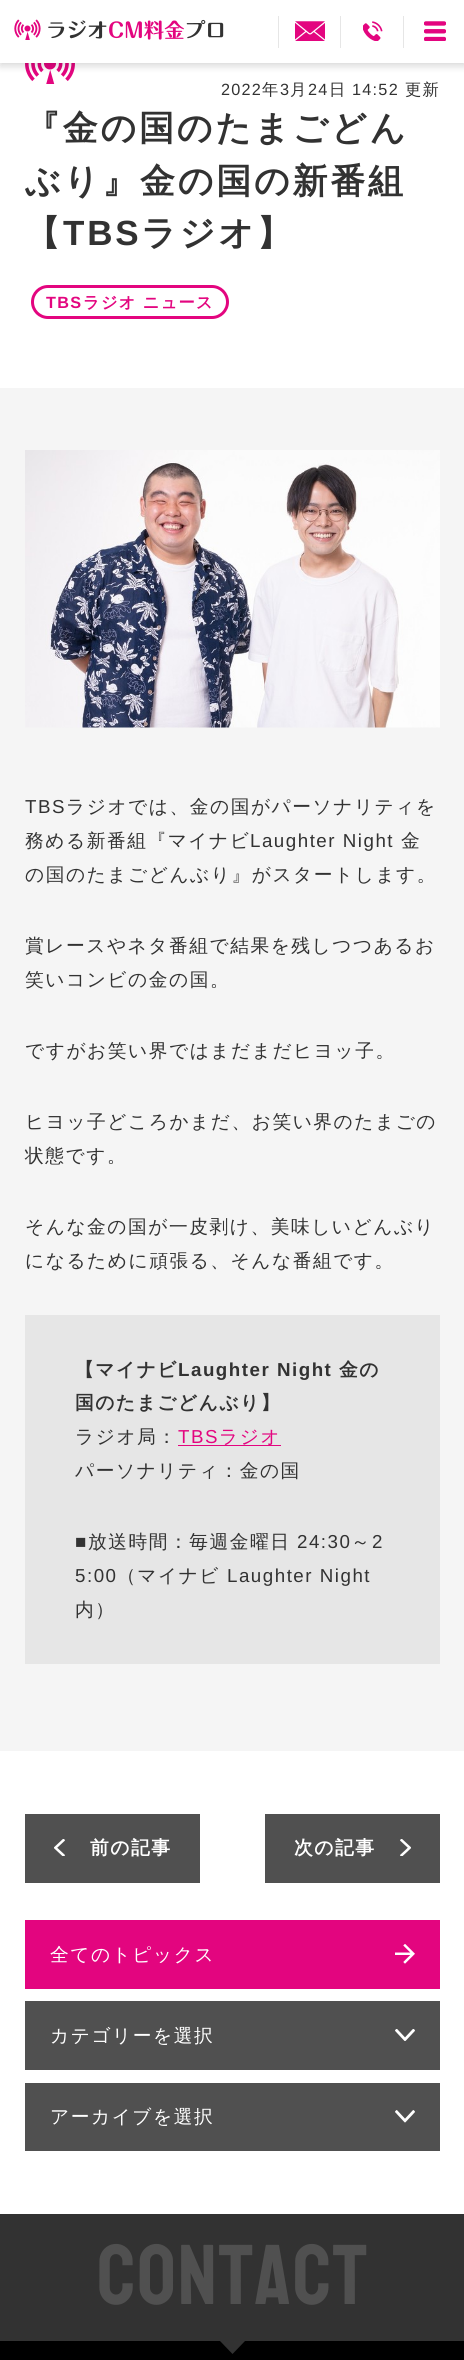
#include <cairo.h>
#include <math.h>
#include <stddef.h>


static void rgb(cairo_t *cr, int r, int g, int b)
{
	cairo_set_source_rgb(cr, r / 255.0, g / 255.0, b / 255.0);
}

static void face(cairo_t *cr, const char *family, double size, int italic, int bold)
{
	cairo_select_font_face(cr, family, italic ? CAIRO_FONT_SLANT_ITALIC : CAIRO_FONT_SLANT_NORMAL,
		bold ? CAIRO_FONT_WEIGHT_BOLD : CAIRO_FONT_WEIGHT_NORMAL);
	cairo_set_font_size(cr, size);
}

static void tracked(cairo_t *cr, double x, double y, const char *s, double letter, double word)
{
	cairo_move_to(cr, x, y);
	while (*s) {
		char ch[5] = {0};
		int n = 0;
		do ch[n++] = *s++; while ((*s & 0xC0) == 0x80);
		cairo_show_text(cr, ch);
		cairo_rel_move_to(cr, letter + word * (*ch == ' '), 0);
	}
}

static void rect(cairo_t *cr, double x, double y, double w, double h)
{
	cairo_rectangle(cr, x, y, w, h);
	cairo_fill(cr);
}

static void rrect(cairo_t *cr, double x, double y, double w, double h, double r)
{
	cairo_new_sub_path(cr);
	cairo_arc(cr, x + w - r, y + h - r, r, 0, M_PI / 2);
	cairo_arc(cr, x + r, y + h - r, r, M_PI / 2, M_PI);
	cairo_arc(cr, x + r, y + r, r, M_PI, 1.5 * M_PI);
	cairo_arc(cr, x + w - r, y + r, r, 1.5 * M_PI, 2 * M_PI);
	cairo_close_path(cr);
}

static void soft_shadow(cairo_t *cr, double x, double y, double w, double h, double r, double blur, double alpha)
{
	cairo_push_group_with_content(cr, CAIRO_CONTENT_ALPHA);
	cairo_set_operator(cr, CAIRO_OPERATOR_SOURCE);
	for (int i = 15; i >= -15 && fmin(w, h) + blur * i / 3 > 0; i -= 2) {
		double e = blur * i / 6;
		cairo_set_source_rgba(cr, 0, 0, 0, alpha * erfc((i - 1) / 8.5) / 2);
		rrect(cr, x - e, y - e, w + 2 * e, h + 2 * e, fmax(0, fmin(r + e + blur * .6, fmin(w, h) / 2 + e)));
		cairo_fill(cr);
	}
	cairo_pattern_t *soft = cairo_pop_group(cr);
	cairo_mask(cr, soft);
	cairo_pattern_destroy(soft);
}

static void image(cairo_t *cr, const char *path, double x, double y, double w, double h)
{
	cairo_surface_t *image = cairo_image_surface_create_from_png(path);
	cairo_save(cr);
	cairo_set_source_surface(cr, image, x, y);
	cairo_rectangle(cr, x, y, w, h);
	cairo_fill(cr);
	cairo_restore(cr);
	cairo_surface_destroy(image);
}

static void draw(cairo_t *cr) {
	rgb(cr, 255, 255, 255);
	cairo_paint(cr);
	image(cr, "image4.png", 25, 63, 50, 21);
	rgb(cr, 0, 0, 0);
	soft_shadow(cr, 0, 4, 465, 62, 0, 4, 0.16);
	rgb(cr, 255, 255, 255);
	rect(cr, 0, 0, 464, 63);
	image(cr, "image0.png", 14, 19, 210, 21);
	rgb(cr, 230, 230, 230);
	rect(cr, 278, 16, 1, 32);
	image(cr, "image1.png", 295, 21, 30, 20);
	rect(cr, 340, 16, 1, 32);
	image(cr, "image2.png", 363, 21, 20, 20);
	rect(cr, 403, 16, 1, 32);
	image(cr, "image3.png", 424, 21, 22, 20);
	face(cr, "Liberation Sans", 16.25, 0, 0);
	rgb(cr, 50, 50, 50);
	tracked(cr, 221, 95, "2022", 1.25, 0);
	face(cr, "WenQuanYi Zen Hei Medium", 16.25, 0, 0);
	tracked(cr, 262, 95, "年", 1.25, 0);
	face(cr, "Liberation Sans", 16.25, 0, 0);
	tracked(cr, 280, 95, "3", 1.25, 0);
	face(cr, "WenQuanYi Zen Hei Medium", 16.25, 0, 0);
	tracked(cr, 290, 95, "月", 1.25, 0);
	face(cr, "Liberation Sans", 16.25, 0, 0);
	tracked(cr, 308, 95, "24", 1.25, 0);
	face(cr, "WenQuanYi Zen Hei Medium", 16.25, 0, 0);
	tracked(cr, 329, 95, "日", 1.25, 0);
	face(cr, "Liberation Sans", 16.25, 0, 0);
	tracked(cr, 352, 95, "14:52", 1.25, 0);
	face(cr, "WenQuanYi Zen Hei Medium", 16.25, 0, 0);
	tracked(cr, 405, 95, "更新", 1.25, 0);
	face(cr, "WenQuanYi Zen Hei", 35, 0, 1);
	tracked(cr, 25, 140, "『金の国のたまごどん", 2.75, 0);
	tracked(cr, 25, 193, "ぶり』金の国の新番組", 2.75, 0);
	tracked(cr, 25, 245, "【", 2.75, 0);
	face(cr, "Liberation Sans", 35, 0, 1);
	tracked(cr, 63, 245, "TBS", 2.75, 0);
	face(cr, "WenQuanYi Zen Hei", 35, 0, 1);
	tracked(cr, 141, 245, "ラジオ】", 2.75, 0);
	rrect(cr, 32.5, 286.5, 195, 31, 15.5);
	rgb(cr, 227, 5, 127);
	cairo_set_line_width(cr, 3);
	cairo_stroke(cr);
	face(cr, "Liberation Sans", 16.25, 0, 1);
	tracked(cr, 46, 308, "TBS", 1.25, 0);
	face(cr, "WenQuanYi Zen Hei", 16.25, 0, 1);
	tracked(cr, 83, 308, "ラジオ ニュース", 1.25, 0);
	rgb(cr, 245, 245, 245);
	rect(cr, 0, 388, 464, 1363);
	image(cr, "image5.png", 25, 450, 415, 278);
	face(cr, "Liberation Sans", 18.75, 0, 0);
	rgb(cr, 50, 50, 50);
	tracked(cr, 25, 813, "TBS", 1.5, 0);
	face(cr, "WenQuanYi Zen Hei Medium", 18.75, 0, 0);
	tracked(cr, 66, 813, "ラジオでは、金の国がパーソナリティを", 1.5, 0);
	tracked(cr, 25, 847, "務める新番組『マイナビ", 1.5, 0);
	face(cr, "Liberation Sans", 18.75, 0, 0);
	tracked(cr, 250, 847, "Laughter Night", 1.5, 0);
	face(cr, "WenQuanYi Zen Hei Medium", 18.75, 0, 0);
	tracked(cr, 401, 847, "金", 1.5, 0);
	tracked(cr, 25, 881, "の国のたまごどんぶり』がスタートします。", 1.5, 0);
	tracked(cr, 25, 952, "賞レースやネタ番組で結果を残しつつあるお", 1.5, 0);
	tracked(cr, 25, 986, "笑いコンビの金の国。", 1.5, 0);
	tracked(cr, 25, 1057, "ですがお笑い界ではまだまだヒヨッ子。", 1.5, 0);
	tracked(cr, 25, 1128, "ヒヨッ子どころかまだ、お笑い界のたまごの", 1.5, 0);
	tracked(cr, 25, 1162, "状態です。", 1.5, 0);
	tracked(cr, 25, 1233, "そんな金の国が一皮剥け、美味しいどんぶり", 1.5, 0);
	tracked(cr, 25, 1267, "になるために頑張る、そんな番組です。", 1.5, 0);
	rgb(cr, 230, 230, 230);
	rect(cr, 25, 1315, 415, 349);
	face(cr, "WenQuanYi Zen Hei", 18.75, 0, 1);
	rgb(cr, 50, 50, 50);
	tracked(cr, 75, 1376, "【マイナビ", 1.5, 0);
	face(cr, "Liberation Sans", 18.75, 0, 1);
	tracked(cr, 178, 1376, "Laughter Night", 1.5, 0);
	face(cr, "WenQuanYi Zen Hei", 18.75, 0, 1);
	tracked(cr, 339, 1376, "金の", 1.5, 0);
	tracked(cr, 75, 1409, "国のたまごどんぶり】", 1.5, 0);
	face(cr, "WenQuanYi Zen Hei Medium", 18.75, 0, 0);
	tracked(cr, 75, 1443, "ラジオ局：", 1.5, 0);
	face(cr, "Liberation Sans", 18.75, 0, 0);
	rgb(cr, 227, 5, 127);
	tracked(cr, 178, 1443, "TBS", 1.5, 0);
	rect(cr, 178, 1445, 103, 1);
	face(cr, "WenQuanYi Zen Hei Medium", 18.75, 0, 0);
	tracked(cr, 219, 1443, "ラジオ", 1.5, 0);
	rgb(cr, 50, 50, 50);
	tracked(cr, 75, 1477, "パーソナリティ：金の国", 1.5, 0);
	face(cr, "Liberation Sans", 18.75, 0, 0);
	tracked(cr, 75, 1548, "■", 1.5, 0);
	face(cr, "WenQuanYi Zen Hei Medium", 18.75, 0, 0);
	tracked(cr, 88, 1548, "放送時間：毎週金曜日", 1.5, 0);
	face(cr, "Liberation Sans", 18.75, 0, 0);
	tracked(cr, 297, 1548, "24:30", 1.5, 0);
	face(cr, "WenQuanYi Zen Hei Medium", 18.75, 0, 0);
	tracked(cr, 351, 1548, "～", 1.5, 0);
	face(cr, "Liberation Sans", 18.75, 0, 0);
	tracked(cr, 372, 1548, "2", 1.5, 0);
	tracked(cr, 75, 1582, "5:00", 1.5, 0);
	face(cr, "WenQuanYi Zen Hei Medium", 18.75, 0, 0);
	tracked(cr, 117, 1582, "（マイナビ", 1.5, 0);
	face(cr, "Liberation Sans", 18.75, 0, 0);
	tracked(cr, 227, 1582, "Laughter Night", 1.5, 0);
	face(cr, "WenQuanYi Zen Hei Medium", 18.75, 0, 0);
	tracked(cr, 75, 1616, "内）", 1.5, 0);
	rgb(cr, 80, 80, 80);
	rect(cr, 25, 1814, 175, 69);
	image(cr, "image6.png", 54, 1839, 11, 17);
	face(cr, "WenQuanYi Zen Hei", 18.75, 0, 1);
	rgb(cr, 255, 255, 255);
	tracked(cr, 90, 1854, "前の記事", 1.5, 0);
	rgb(cr, 80, 80, 80);
	rect(cr, 265, 1814, 175, 69);
	rgb(cr, 255, 255, 255);
	tracked(cr, 294, 1854, "次の記事", 1.5, 0);
	image(cr, "image7.png", 400, 1839, 11, 17);
	rgb(cr, 227, 5, 127);
	rect(cr, 25, 1920, 415, 69);
	face(cr, "WenQuanYi Zen Hei Medium", 18.75, 0, 0);
	rgb(cr, 255, 255, 255);
	tracked(cr, 50, 1961, "全てのトピックス", 1.5, 0);
	image(cr, "image8.png", 395, 1944, 20, 20);
	rgb(cr, 80, 80, 80);
	rect(cr, 25, 2001, 415, 69);
	rgb(cr, 255, 255, 255);
	tracked(cr, 50, 2042, "カテゴリーを選択", 1.5, 0);
	image(cr, "image9.png", 395, 2029, 20, 12);
	rgb(cr, 80, 80, 80);
	rect(cr, 25, 2083, 415, 68);
	rgb(cr, 255, 255, 255);
	tracked(cr, 50, 2123, "アーカイブを選択", 1.5, 0);
	image(cr, "image10.png", 395, 2110, 20, 13);
	rgb(cr, 50, 50, 50);
	rect(cr, 0, 2214, 464, 127);
	face(cr, "Staatliches", 85, 0, 0);
	rgb(cr, 80, 80, 80);
	tracked(cr, 97, 2304, "CONTACT", 1.75, 0);
	rgb(cr, 0, 0, 0);
	rect(cr, 0, 2341, 464, 19);
	rgb(cr, 50, 50, 50);
	cairo_new_path(cr);
	cairo_move_to(cr, 220, 2341);
	cairo_line_to(cr, 245, 2341);
	cairo_line_to(cr, 232.5, 2354);
	cairo_close_path(cr);
	cairo_fill(cr);
}

int main(void) {
	cairo_surface_t *surface = cairo_image_surface_create(CAIRO_FORMAT_RGB24, 464, 2360);
	cairo_t *cr = cairo_create(surface);
	cairo_font_options_t *options = cairo_font_options_create();
	cairo_font_options_set_hint_metrics(options, CAIRO_HINT_METRICS_OFF);
	cairo_font_options_set_hint_style(options, CAIRO_HINT_STYLE_NONE);
	cairo_set_font_options(cr, options);
	cairo_set_miter_limit(cr, 4);
	draw(cr);
	cairo_surface_write_to_png(surface, "render.png");
	cairo_font_options_destroy(options);
	cairo_destroy(cr);
	cairo_surface_destroy(surface);
	return 0;
}
